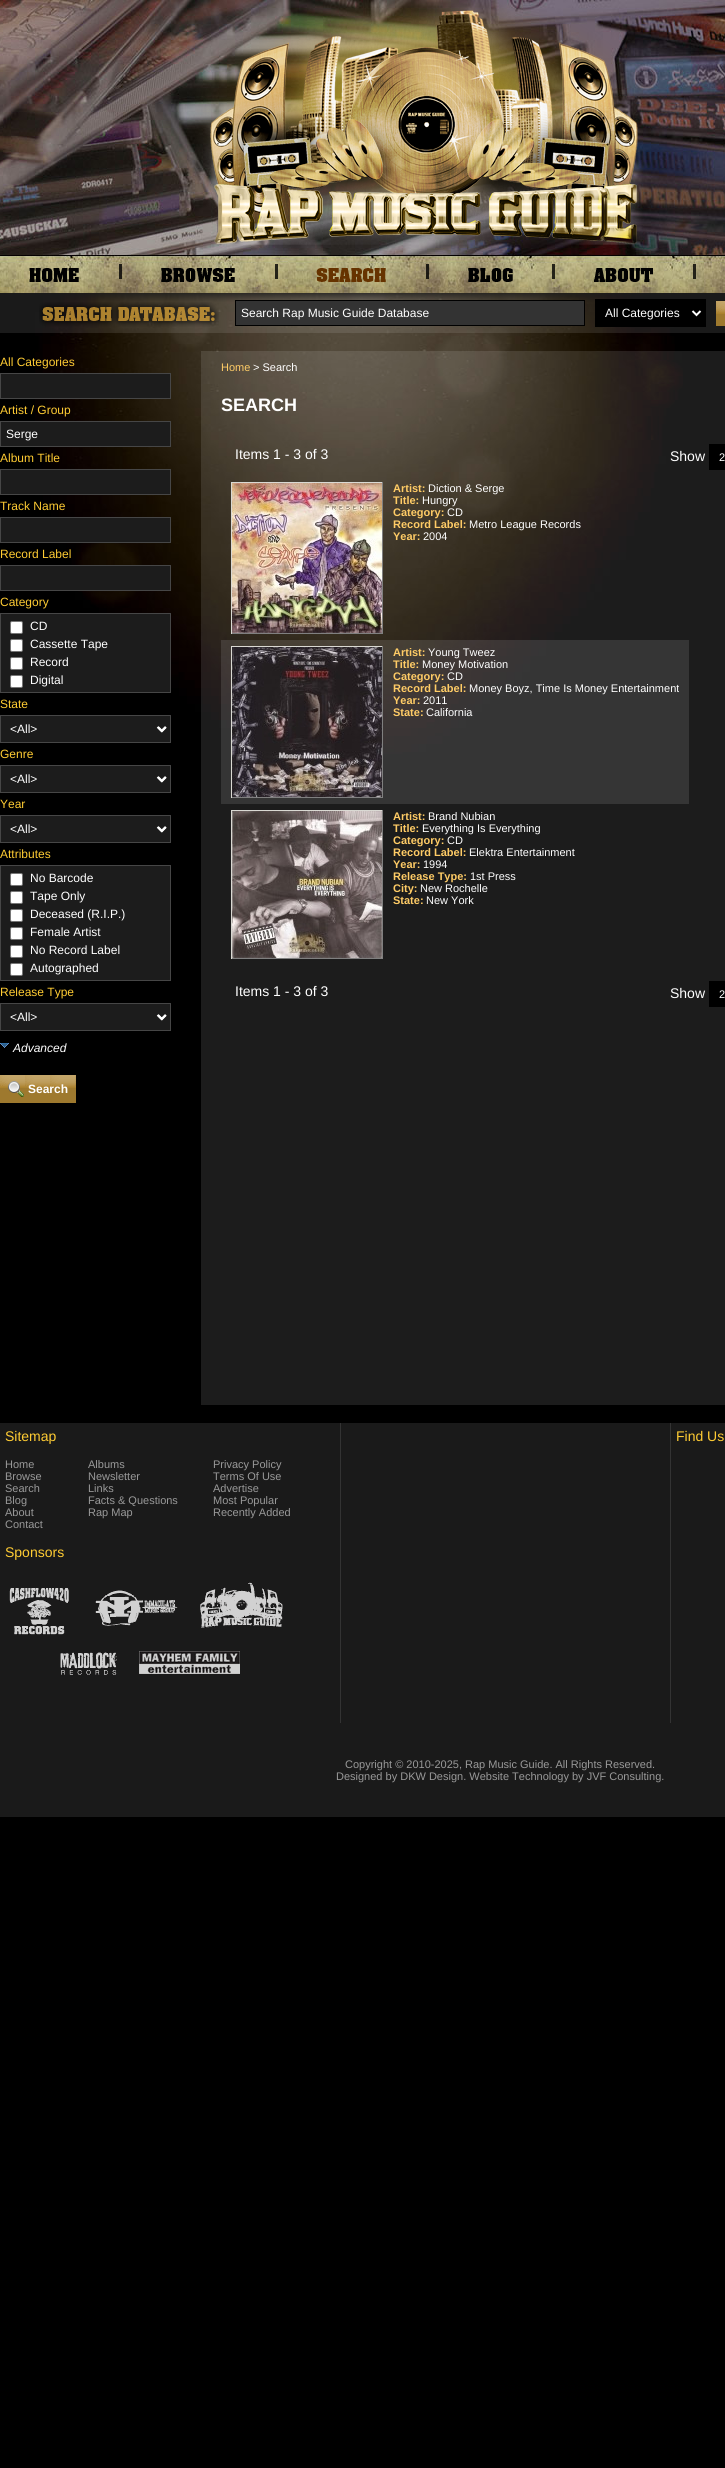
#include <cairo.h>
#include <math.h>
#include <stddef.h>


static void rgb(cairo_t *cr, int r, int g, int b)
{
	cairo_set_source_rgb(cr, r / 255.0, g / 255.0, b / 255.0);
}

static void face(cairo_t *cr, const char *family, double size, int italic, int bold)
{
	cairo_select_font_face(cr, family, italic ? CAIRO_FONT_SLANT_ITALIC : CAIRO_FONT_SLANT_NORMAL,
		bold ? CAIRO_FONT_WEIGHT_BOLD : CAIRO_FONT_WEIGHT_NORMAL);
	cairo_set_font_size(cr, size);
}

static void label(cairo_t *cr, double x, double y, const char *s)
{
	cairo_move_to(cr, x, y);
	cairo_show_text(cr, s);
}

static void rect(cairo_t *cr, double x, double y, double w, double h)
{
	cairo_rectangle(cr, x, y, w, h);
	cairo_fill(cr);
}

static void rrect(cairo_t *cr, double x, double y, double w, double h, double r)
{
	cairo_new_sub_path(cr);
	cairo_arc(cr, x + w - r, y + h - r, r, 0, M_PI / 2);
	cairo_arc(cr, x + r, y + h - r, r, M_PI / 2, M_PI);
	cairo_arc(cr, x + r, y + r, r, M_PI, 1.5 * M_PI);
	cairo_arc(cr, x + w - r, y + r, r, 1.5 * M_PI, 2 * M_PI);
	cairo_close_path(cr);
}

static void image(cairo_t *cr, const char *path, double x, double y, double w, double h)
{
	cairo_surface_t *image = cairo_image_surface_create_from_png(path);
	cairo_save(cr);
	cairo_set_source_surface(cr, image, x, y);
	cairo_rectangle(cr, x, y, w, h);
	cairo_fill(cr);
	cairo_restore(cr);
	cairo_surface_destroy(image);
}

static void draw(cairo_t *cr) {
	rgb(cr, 0, 0, 0);
	cairo_paint(cr);
	image(cr, "image0.png", 35, 293, 648, 461);
	image(cr, "image1.png", 0, 0, 725, 255);
	image(cr, "image2.png", 189, 0, 483, 245);
	image(cr, "image3.png", 0, 255, 725, 38);
	image(cr, "image4.png", 29, 268, 50, 14);
	cairo_set_source_rgba(cr, 0.004, 0.004, 0.004, 0.8);
	rect(cr, 119, 264, 3, 15);
	image(cr, "image5.png", 161, 268, 74, 14);
	rect(cr, 275, 264, 3, 15);
	image(cr, "image6.png", 316, 268, 70, 14);
	rect(cr, 426, 264, 3, 15);
	image(cr, "image7.png", 468, 268, 45, 14);
	rect(cr, 552, 264, 3, 15);
	image(cr, "image8.png", 594, 268, 59, 14);
	rect(cr, 693, 264, 3, 15);
	image(cr, "image9.png", 0, 293, 725, 40);
	image(cr, "image10.png", 39, 302, 180, 25);
	rgb(cr, 51, 51, 51);
	cairo_rectangle(cr, 235.5, 300.5, 349, 25);
	cairo_fill_preserve(cr);
	rgb(cr, 0, 0, 0);
	cairo_set_line_width(cr, 1);
	cairo_stroke(cr);
	face(cr, "Liberation Sans", 12, 0, 0);
	rgb(cr, 255, 255, 255);
	label(cr, 241, 317, "Search Rap Music Guide Database");
	rgb(cr, 0, 0, 0);
	rect(cr, 595, 299, 111, 28);
	cairo_new_path(cr);
	cairo_move_to(cr, 692.5, 311);
	cairo_line_to(cr, 696.5, 315);
	cairo_line_to(cr, 700.5, 311);
	rgb(cr, 255, 255, 255);
	cairo_set_line_width(cr, 2);
	cairo_stroke(cr);
	label(cr, 605, 317, "All Categories");
	image(cr, "image11.png", 716, 301, 9, 25);
	rgb(cr, 255, 204, 51);
	label(cr, 0, 366, "All Categories");
	rgb(cr, 28, 28, 28);
	cairo_rectangle(cr, 0.5, 373.5, 170, 25);
	cairo_fill_preserve(cr);
	rgb(cr, 70, 70, 70);
	cairo_set_line_width(cr, 1);
	cairo_stroke(cr);
	rgb(cr, 255, 204, 51);
	label(cr, 0, 414, "Artist / Group");
	rgb(cr, 28, 28, 28);
	cairo_rectangle(cr, 0.5, 421.5, 170, 25);
	cairo_fill_preserve(cr);
	rgb(cr, 70, 70, 70);
	cairo_stroke(cr);
	rgb(cr, 255, 255, 255);
	label(cr, 6, 438, "Serge");
	rgb(cr, 255, 204, 51);
	label(cr, 0, 462, "Album Title");
	rgb(cr, 28, 28, 28);
	cairo_rectangle(cr, 0.5, 469.5, 170, 25);
	cairo_fill_preserve(cr);
	rgb(cr, 70, 70, 70);
	cairo_stroke(cr);
	rgb(cr, 255, 204, 51);
	label(cr, 0, 510, "Track Name");
	rgb(cr, 28, 28, 28);
	cairo_rectangle(cr, 0.5, 517.5, 170, 25);
	cairo_fill_preserve(cr);
	rgb(cr, 70, 70, 70);
	cairo_stroke(cr);
	rgb(cr, 255, 204, 51);
	label(cr, 0, 558, "Record Label");
	rgb(cr, 28, 28, 28);
	cairo_rectangle(cr, 0.5, 565.5, 170, 25);
	cairo_fill_preserve(cr);
	rgb(cr, 70, 70, 70);
	cairo_stroke(cr);
	rgb(cr, 255, 204, 51);
	label(cr, 0, 606, "Category");
	rgb(cr, 28, 28, 28);
	cairo_rectangle(cr, 0.5, 613.5, 170, 79);
	cairo_fill_preserve(cr);
	rgb(cr, 70, 70, 70);
	cairo_stroke(cr);
	rgb(cr, 255, 255, 255);
	rrect(cr, 10.5, 621.5, 12, 12, 1.5);
	cairo_fill_preserve(cr);
	rgb(cr, 118, 118, 118);
	cairo_stroke(cr);
	rgb(cr, 255, 255, 255);
	label(cr, 30, 630, "CD");
	rrect(cr, 10.5, 639.5, 12, 12, 1.5);
	cairo_fill_preserve(cr);
	rgb(cr, 118, 118, 118);
	cairo_stroke(cr);
	rgb(cr, 255, 255, 255);
	label(cr, 30, 648, "Cassette Tape");
	rrect(cr, 10.5, 657.5, 12, 12, 1.5);
	cairo_fill_preserve(cr);
	rgb(cr, 118, 118, 118);
	cairo_stroke(cr);
	rgb(cr, 255, 255, 255);
	label(cr, 30, 666, "Record");
	rrect(cr, 10.5, 675.5, 12, 12, 1.5);
	cairo_fill_preserve(cr);
	rgb(cr, 118, 118, 118);
	cairo_stroke(cr);
	rgb(cr, 255, 255, 255);
	label(cr, 30, 684, "Digital");
	rgb(cr, 255, 204, 51);
	label(cr, 0, 708, "State");
	image(cr, "image12.png", 1, 716, 169, 26);
	cairo_rectangle(cr, 0.5, 715.5, 170, 27);
	rgb(cr, 70, 70, 70);
	cairo_stroke(cr);
	cairo_new_path(cr);
	cairo_move_to(cr, 157.5, 727);
	cairo_line_to(cr, 161.5, 731);
	cairo_line_to(cr, 165.5, 727);
	rgb(cr, 255, 255, 255);
	cairo_set_line_width(cr, 2);
	cairo_stroke(cr);
	label(cr, 10, 733, "<All>");
	rgb(cr, 255, 204, 51);
	label(cr, 0, 758, "Genre");
	image(cr, "image12.png", 1, 766, 169, 26);
	cairo_rectangle(cr, 0.5, 765.5, 170, 27);
	rgb(cr, 70, 70, 70);
	cairo_set_line_width(cr, 1);
	cairo_stroke(cr);
	cairo_new_path(cr);
	cairo_move_to(cr, 157.5, 777);
	cairo_line_to(cr, 161.5, 781);
	cairo_line_to(cr, 165.5, 777);
	rgb(cr, 255, 255, 255);
	cairo_set_line_width(cr, 2);
	cairo_stroke(cr);
	label(cr, 10, 783, "<All>");
	rgb(cr, 255, 204, 51);
	label(cr, 0, 808, "Year");
	image(cr, "image12.png", 1, 816, 169, 26);
	cairo_rectangle(cr, 0.5, 815.5, 170, 27);
	rgb(cr, 70, 70, 70);
	cairo_set_line_width(cr, 1);
	cairo_stroke(cr);
	cairo_new_path(cr);
	cairo_move_to(cr, 157.5, 827);
	cairo_line_to(cr, 161.5, 831);
	cairo_line_to(cr, 165.5, 827);
	rgb(cr, 255, 255, 255);
	cairo_set_line_width(cr, 2);
	cairo_stroke(cr);
	label(cr, 10, 833, "<All>");
	rgb(cr, 255, 204, 51);
	label(cr, 0, 858, "Attributes");
	rgb(cr, 28, 28, 28);
	cairo_rectangle(cr, 0.5, 865.5, 170, 115);
	cairo_fill_preserve(cr);
	rgb(cr, 70, 70, 70);
	cairo_set_line_width(cr, 1);
	cairo_stroke(cr);
	rgb(cr, 255, 255, 255);
	rrect(cr, 10.5, 873.5, 12, 12, 1.5);
	cairo_fill_preserve(cr);
	rgb(cr, 118, 118, 118);
	cairo_stroke(cr);
	rgb(cr, 255, 255, 255);
	label(cr, 30, 882, "No Barcode");
	rrect(cr, 10.5, 891.5, 12, 12, 1.5);
	cairo_fill_preserve(cr);
	rgb(cr, 118, 118, 118);
	cairo_stroke(cr);
	rgb(cr, 255, 255, 255);
	label(cr, 30, 900, "Tape Only");
	rrect(cr, 10.5, 909.5, 12, 12, 1.5);
	cairo_fill_preserve(cr);
	rgb(cr, 118, 118, 118);
	cairo_stroke(cr);
	rgb(cr, 255, 255, 255);
	label(cr, 30, 918, "Deceased (R.I.P.)");
	rrect(cr, 10.5, 927.5, 12, 12, 1.5);
	cairo_fill_preserve(cr);
	rgb(cr, 118, 118, 118);
	cairo_stroke(cr);
	rgb(cr, 255, 255, 255);
	label(cr, 30, 936, "Female Artist");
	rrect(cr, 10.5, 945.5, 12, 12, 1.5);
	cairo_fill_preserve(cr);
	rgb(cr, 118, 118, 118);
	cairo_stroke(cr);
	rgb(cr, 255, 255, 255);
	label(cr, 30, 954, "No Record Label");
	rrect(cr, 10.5, 963.5, 12, 12, 1.5);
	cairo_fill_preserve(cr);
	rgb(cr, 118, 118, 118);
	cairo_stroke(cr);
	rgb(cr, 255, 255, 255);
	label(cr, 30, 972, "Autographed");
	rgb(cr, 255, 204, 51);
	label(cr, 0, 996, "Release Type");
	image(cr, "image13.png", 1, 1004, 169, 26);
	cairo_rectangle(cr, 0.5, 1003.5, 170, 27);
	rgb(cr, 70, 70, 70);
	cairo_stroke(cr);
	cairo_new_path(cr);
	cairo_move_to(cr, 157.5, 1015);
	cairo_line_to(cr, 161.5, 1019);
	cairo_line_to(cr, 165.5, 1015);
	rgb(cr, 255, 255, 255);
	cairo_set_line_width(cr, 2);
	cairo_stroke(cr);
	label(cr, 10, 1021, "<All>");
	image(cr, "image14.png", 0, 1043, 9, 5);
	face(cr, "Liberation Sans", 12, 1, 0);
	label(cr, 13, 1052, "Advanced");
	image(cr, "image15.png", 0, 1075, 76, 28);
	image(cr, "image16.png", 8, 1081, 16, 16);
	face(cr, "Liberation Sans", 12, 0, 1);
	label(cr, 28, 1093, "Search");
	cairo_set_source_rgba(cr, 1, 1, 1, 0.11);
	rect(cr, 201, 351, 524, 1054);
	face(cr, "Liberation Sans", 11, 0, 0);
	rgb(cr, 255, 204, 102);
	label(cr, 221, 371, "Home");
	rgb(cr, 255, 255, 255);
	label(cr, 253, 371, "> Search");
	face(cr, "Liberation Sans", 18, 0, 1);
	label(cr, 221, 411, "SEARCH");
	face(cr, "Liberation Sans", 14, 0, 0);
	label(cr, 235, 459, "Items 1 - 3 of 3");
	label(cr, 670, 461, "Show");
	rgb(cr, 0, 0, 0);
	rect(cr, 709, 444, 16, 26);
	face(cr, "Liberation Sans", 11, 0, 0);
	rgb(cr, 255, 255, 255);
	label(cr, 719, 461, "2");
	rgb(cr, 218, 217, 211);
	rect(cr, 231, 482, 152, 1);
	rgb(cr, 128, 128, 128);
	rect(cr, 382, 482, 1, 152);
	rect(cr, 231, 633, 152, 1);
	rgb(cr, 218, 217, 211);
	rect(cr, 231, 482, 1, 152);
	image(cr, "image17.png", 232, 483, 150, 150);
	face(cr, "Liberation Sans", 11, 0, 1);
	rgb(cr, 255, 204, 102);
	label(cr, 393, 492, "Artist:");
	face(cr, "Liberation Sans", 11, 0, 0);
	rgb(cr, 255, 255, 255);
	label(cr, 428, 492, "Diction & Serge");
	face(cr, "Liberation Sans", 11, 0, 1);
	rgb(cr, 255, 204, 102);
	label(cr, 393, 504, "Title:");
	face(cr, "Liberation Sans", 11, 0, 0);
	rgb(cr, 255, 255, 255);
	label(cr, 422, 504, "Hungry");
	face(cr, "Liberation Sans", 11, 0, 1);
	rgb(cr, 255, 204, 102);
	label(cr, 393, 516, "Category:");
	face(cr, "Liberation Sans", 11, 0, 0);
	rgb(cr, 255, 255, 255);
	label(cr, 447, 516, "CD");
	face(cr, "Liberation Sans", 11, 0, 1);
	rgb(cr, 255, 204, 102);
	label(cr, 393, 528, "Record Label:");
	face(cr, "Liberation Sans", 11, 0, 0);
	rgb(cr, 255, 255, 255);
	label(cr, 469, 528, "Metro League Records");
	face(cr, "Liberation Sans", 11, 0, 1);
	rgb(cr, 255, 204, 102);
	label(cr, 393, 540, "Year:");
	face(cr, "Liberation Sans", 11, 0, 0);
	rgb(cr, 255, 255, 255);
	label(cr, 423, 540, "2004");
	cairo_set_source_rgba(cr, 1, 1, 1, 0.11);
	rect(cr, 221, 640, 468, 164);
	rgb(cr, 218, 217, 211);
	rect(cr, 231, 646, 152, 1);
	rgb(cr, 128, 128, 128);
	rect(cr, 382, 646, 1, 152);
	rect(cr, 231, 797, 152, 1);
	rgb(cr, 218, 217, 211);
	rect(cr, 231, 646, 1, 152);
	image(cr, "image18.png", 232, 647, 150, 150);
	face(cr, "Liberation Sans", 11, 0, 1);
	rgb(cr, 255, 204, 102);
	label(cr, 393, 656, "Artist:");
	face(cr, "Liberation Sans", 11, 0, 0);
	rgb(cr, 255, 255, 255);
	label(cr, 428, 656, "Young Tweez");
	face(cr, "Liberation Sans", 11, 0, 1);
	rgb(cr, 255, 204, 102);
	label(cr, 393, 668, "Title:");
	face(cr, "Liberation Sans", 11, 0, 0);
	rgb(cr, 255, 255, 255);
	label(cr, 422, 668, "Money Motivation");
	face(cr, "Liberation Sans", 11, 0, 1);
	rgb(cr, 255, 204, 102);
	label(cr, 393, 680, "Category:");
	face(cr, "Liberation Sans", 11, 0, 0);
	rgb(cr, 255, 255, 255);
	label(cr, 447, 680, "CD");
	face(cr, "Liberation Sans", 11, 0, 1);
	rgb(cr, 255, 204, 102);
	label(cr, 393, 692, "Record Label:");
	face(cr, "Liberation Sans", 11, 0, 0);
	rgb(cr, 255, 255, 255);
	label(cr, 469, 692, "Money Boyz, Time Is Money Entertainment");
	face(cr, "Liberation Sans", 11, 0, 1);
	rgb(cr, 255, 204, 102);
	label(cr, 393, 704, "Year:");
	face(cr, "Liberation Sans", 11, 0, 0);
	rgb(cr, 255, 255, 255);
	label(cr, 423, 704, "2011");
	face(cr, "Liberation Sans", 11, 0, 1);
	rgb(cr, 255, 204, 102);
	label(cr, 393, 716, "State:");
	face(cr, "Liberation Sans", 11, 0, 0);
	rgb(cr, 255, 255, 255);
	label(cr, 426, 716, "California");
	rgb(cr, 218, 217, 211);
	rect(cr, 231, 810, 152, 1);
	rgb(cr, 128, 128, 128);
	rect(cr, 382, 810, 1, 149);
	rect(cr, 231, 958, 152, 1);
	rgb(cr, 218, 217, 211);
	rect(cr, 231, 810, 1, 149);
	image(cr, "image19.png", 232, 811, 150, 147);
	face(cr, "Liberation Sans", 11, 0, 1);
	rgb(cr, 255, 204, 102);
	label(cr, 393, 820, "Artist:");
	face(cr, "Liberation Sans", 11, 0, 0);
	rgb(cr, 255, 255, 255);
	label(cr, 428, 820, "Brand Nubian");
	face(cr, "Liberation Sans", 11, 0, 1);
	rgb(cr, 255, 204, 102);
	label(cr, 393, 832, "Title:");
	face(cr, "Liberation Sans", 11, 0, 0);
	rgb(cr, 255, 255, 255);
	label(cr, 422, 832, "Everything Is Everything");
	face(cr, "Liberation Sans", 11, 0, 1);
	rgb(cr, 255, 204, 102);
	label(cr, 393, 844, "Category:");
	face(cr, "Liberation Sans", 11, 0, 0);
	rgb(cr, 255, 255, 255);
	label(cr, 447, 844, "CD");
	face(cr, "Liberation Sans", 11, 0, 1);
	rgb(cr, 255, 204, 102);
	label(cr, 393, 856, "Record Label:");
	face(cr, "Liberation Sans", 11, 0, 0);
	rgb(cr, 255, 255, 255);
	label(cr, 469, 856, "Elektra Entertainment");
	face(cr, "Liberation Sans", 11, 0, 1);
	rgb(cr, 255, 204, 102);
	label(cr, 393, 868, "Year:");
	face(cr, "Liberation Sans", 11, 0, 0);
	rgb(cr, 255, 255, 255);
	label(cr, 423, 868, "1994");
	face(cr, "Liberation Sans", 11, 0, 1);
	rgb(cr, 255, 204, 102);
	label(cr, 393, 880, "Release Type:");
	face(cr, "Liberation Sans", 11, 0, 0);
	rgb(cr, 255, 255, 255);
	label(cr, 470, 880, "1st Press");
	face(cr, "Liberation Sans", 11, 0, 1);
	rgb(cr, 255, 204, 102);
	label(cr, 393, 892, "City:");
	face(cr, "Liberation Sans", 11, 0, 0);
	rgb(cr, 255, 255, 255);
	label(cr, 420, 892, "New Rochelle");
	face(cr, "Liberation Sans", 11, 0, 1);
	rgb(cr, 255, 204, 102);
	label(cr, 393, 904, "State:");
	face(cr, "Liberation Sans", 11, 0, 0);
	rgb(cr, 255, 255, 255);
	label(cr, 426, 904, "New York");
	face(cr, "Liberation Sans", 14, 0, 0);
	label(cr, 235, 996, "Items 1 - 3 of 3");
	label(cr, 670, 998, "Show");
	rgb(cr, 0, 0, 0);
	rect(cr, 709, 981, 16, 26);
	face(cr, "Liberation Sans", 11, 0, 0);
	rgb(cr, 255, 255, 255);
	label(cr, 719, 998, "2");
	rgb(cr, 26, 26, 26);
	rect(cr, 0, 1423, 725, 394);
	face(cr, "Liberation Sans", 14, 0, 0);
	rgb(cr, 255, 204, 51);
	label(cr, 5, 1441, "Sitemap");
	face(cr, "Liberation Sans", 11, 0, 0);
	rgb(cr, 153, 153, 153);
	label(cr, 5, 1468, "Home");
	label(cr, 5, 1480, "Browse");
	label(cr, 5, 1492, "Search");
	label(cr, 5, 1504, "Blog");
	label(cr, 5, 1516, "About");
	label(cr, 5, 1528, "Contact");
	label(cr, 88, 1468, "Albums");
	label(cr, 88, 1480, "Newsletter");
	label(cr, 88, 1492, "Links");
	label(cr, 88, 1504, "Facts & Questions");
	label(cr, 88, 1516, "Rap Map");
	label(cr, 213, 1468, "Privacy Policy");
	label(cr, 213, 1480, "Terms Of Use");
	label(cr, 213, 1492, "Advertise");
	label(cr, 213, 1504, "Most Popular");
	label(cr, 213, 1516, "Recently Added");
	face(cr, "Liberation Sans", 14, 0, 0);
	rgb(cr, 255, 204, 51);
	label(cr, 5, 1557, "Sponsors");
	image(cr, "image20.png", 9, 1582, 274, 93);
	rgb(cr, 51, 51, 51);
	rect(cr, 340, 1423, 1, 300);
	rect(cr, 670, 1423, 1, 300);
	rgb(cr, 255, 204, 51);
	label(cr, 676, 1441, "Find Us");
	face(cr, "Liberation Sans", 11, 0, 0);
	rgb(cr, 153, 153, 153);
	label(cr, 345, 1768, "Copyright © 2010-2025, Rap Music Guide. All Rights Reserved.");
	label(cr, 336, 1780, "Designed by DKW Design. Website Technology by JVF Consulting.");
}

int main(void) {
	cairo_surface_t *surface = cairo_image_surface_create(CAIRO_FORMAT_RGB24, 725, 2468);
	cairo_t *cr = cairo_create(surface);
	cairo_font_options_t *options = cairo_font_options_create();
	cairo_font_options_set_hint_metrics(options, CAIRO_HINT_METRICS_OFF);
	cairo_font_options_set_hint_style(options, CAIRO_HINT_STYLE_NONE);
	cairo_set_font_options(cr, options);
	cairo_set_miter_limit(cr, 4);
	draw(cr);
	cairo_surface_write_to_png(surface, "render.png");
	cairo_font_options_destroy(options);
	cairo_destroy(cr);
	cairo_surface_destroy(surface);
	return 0;
}
